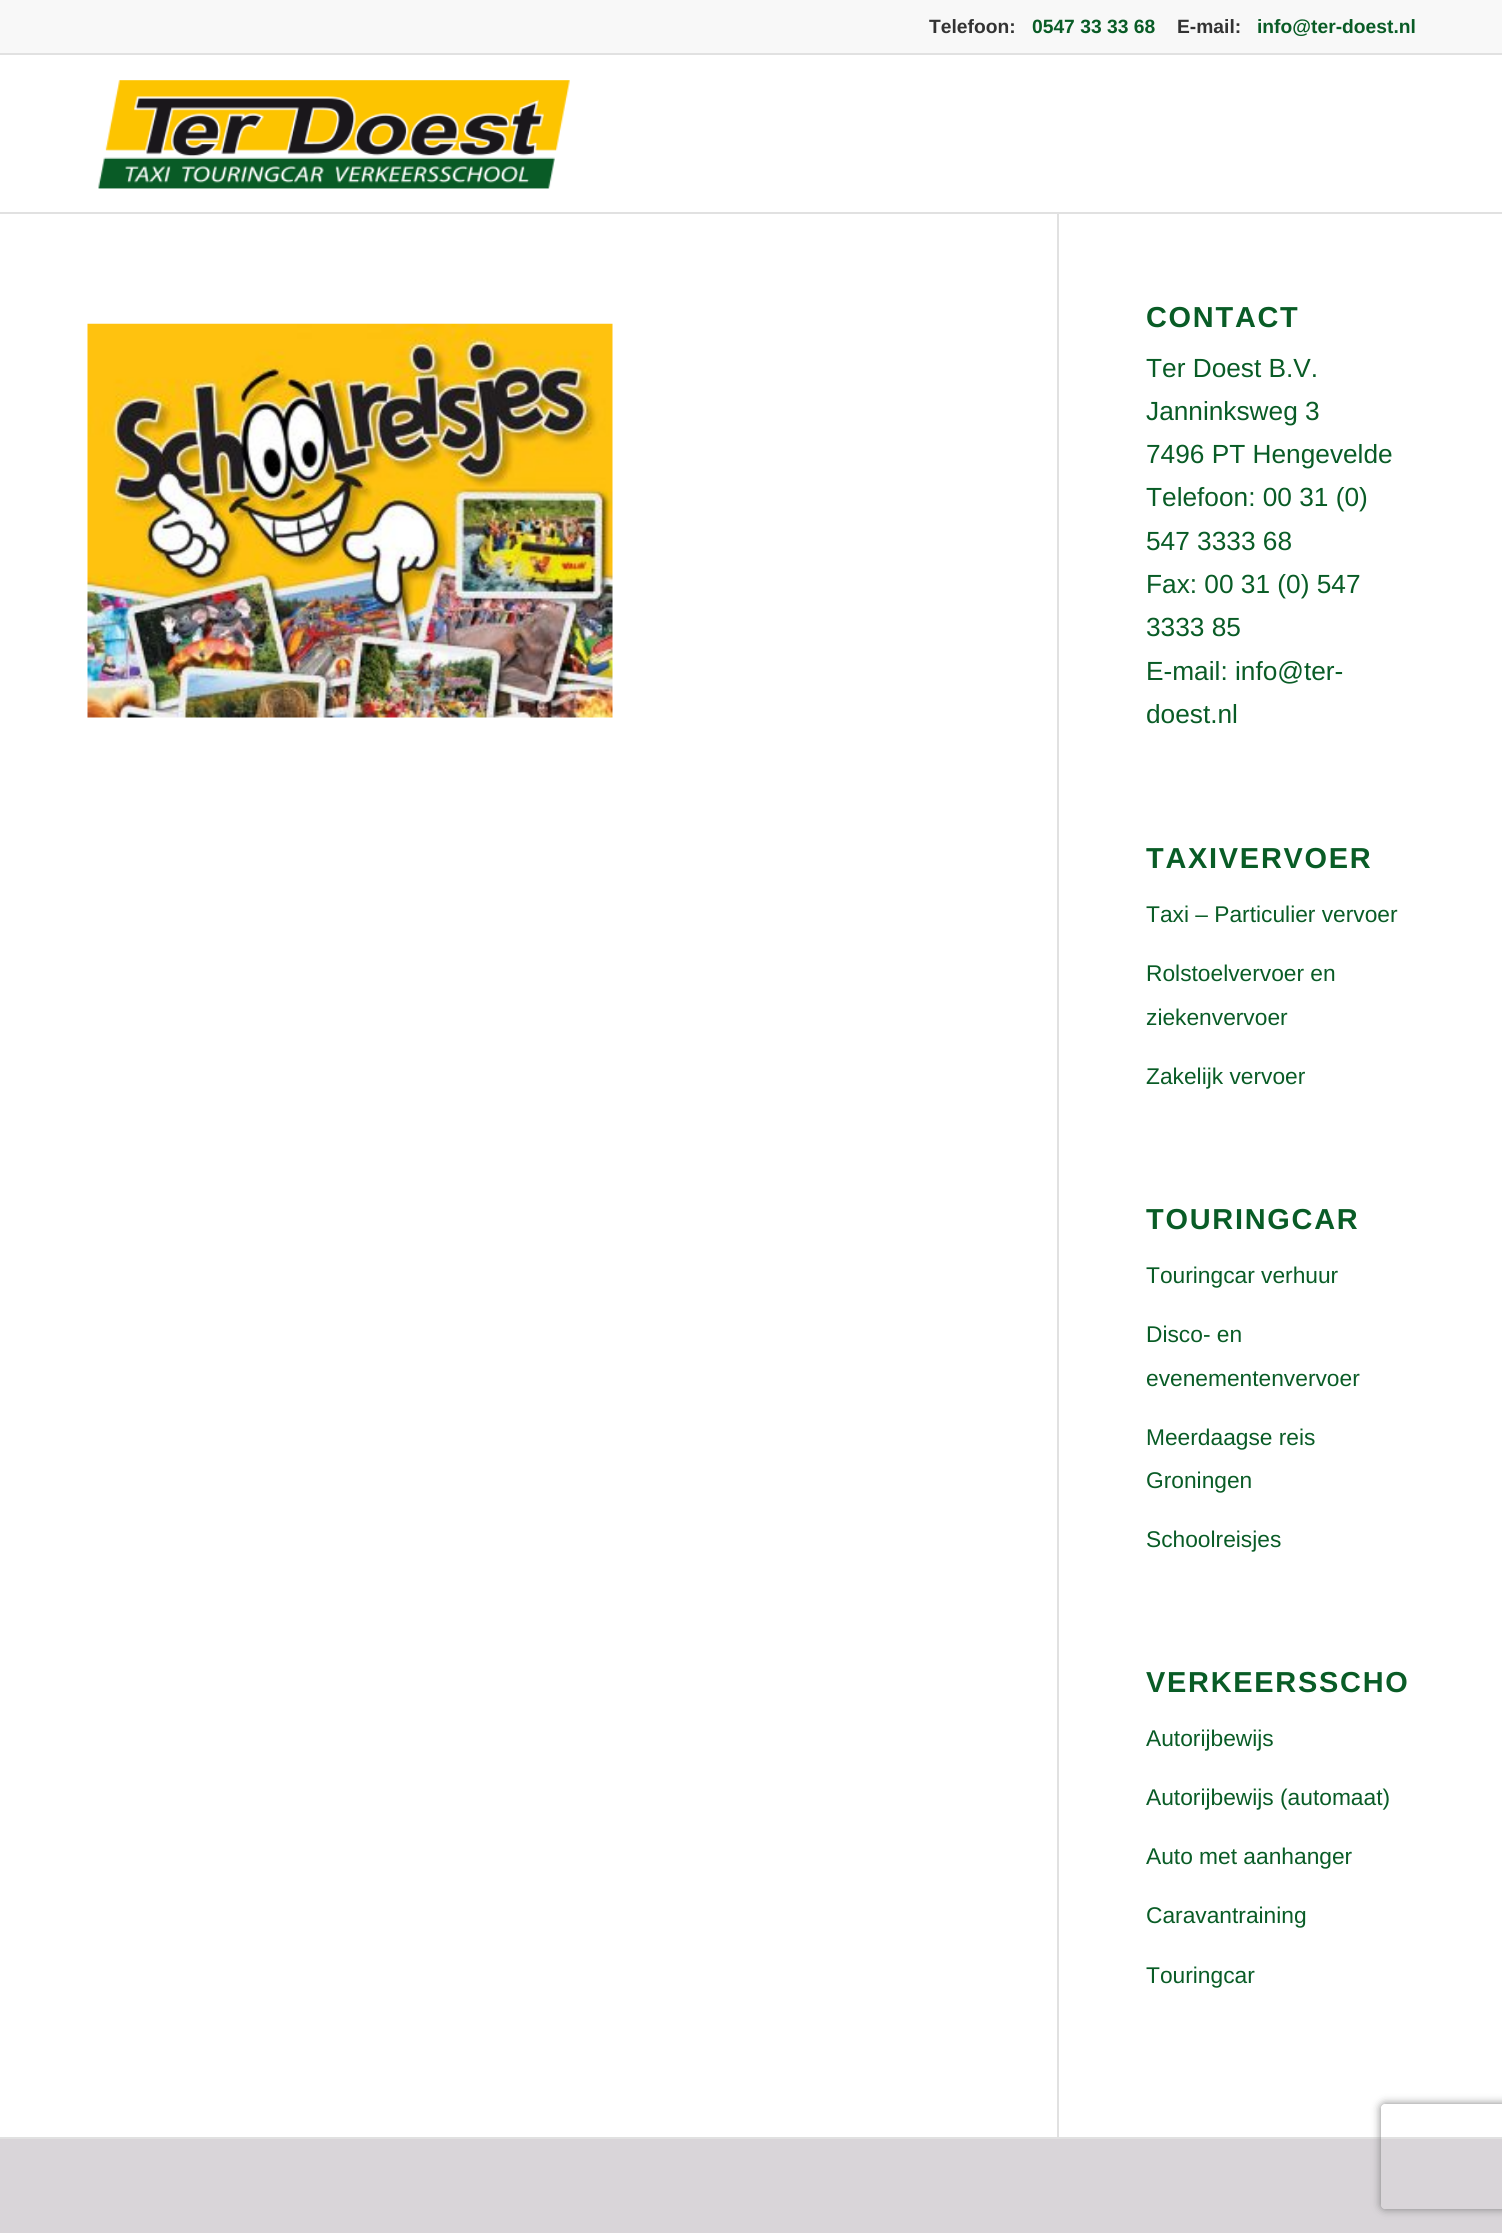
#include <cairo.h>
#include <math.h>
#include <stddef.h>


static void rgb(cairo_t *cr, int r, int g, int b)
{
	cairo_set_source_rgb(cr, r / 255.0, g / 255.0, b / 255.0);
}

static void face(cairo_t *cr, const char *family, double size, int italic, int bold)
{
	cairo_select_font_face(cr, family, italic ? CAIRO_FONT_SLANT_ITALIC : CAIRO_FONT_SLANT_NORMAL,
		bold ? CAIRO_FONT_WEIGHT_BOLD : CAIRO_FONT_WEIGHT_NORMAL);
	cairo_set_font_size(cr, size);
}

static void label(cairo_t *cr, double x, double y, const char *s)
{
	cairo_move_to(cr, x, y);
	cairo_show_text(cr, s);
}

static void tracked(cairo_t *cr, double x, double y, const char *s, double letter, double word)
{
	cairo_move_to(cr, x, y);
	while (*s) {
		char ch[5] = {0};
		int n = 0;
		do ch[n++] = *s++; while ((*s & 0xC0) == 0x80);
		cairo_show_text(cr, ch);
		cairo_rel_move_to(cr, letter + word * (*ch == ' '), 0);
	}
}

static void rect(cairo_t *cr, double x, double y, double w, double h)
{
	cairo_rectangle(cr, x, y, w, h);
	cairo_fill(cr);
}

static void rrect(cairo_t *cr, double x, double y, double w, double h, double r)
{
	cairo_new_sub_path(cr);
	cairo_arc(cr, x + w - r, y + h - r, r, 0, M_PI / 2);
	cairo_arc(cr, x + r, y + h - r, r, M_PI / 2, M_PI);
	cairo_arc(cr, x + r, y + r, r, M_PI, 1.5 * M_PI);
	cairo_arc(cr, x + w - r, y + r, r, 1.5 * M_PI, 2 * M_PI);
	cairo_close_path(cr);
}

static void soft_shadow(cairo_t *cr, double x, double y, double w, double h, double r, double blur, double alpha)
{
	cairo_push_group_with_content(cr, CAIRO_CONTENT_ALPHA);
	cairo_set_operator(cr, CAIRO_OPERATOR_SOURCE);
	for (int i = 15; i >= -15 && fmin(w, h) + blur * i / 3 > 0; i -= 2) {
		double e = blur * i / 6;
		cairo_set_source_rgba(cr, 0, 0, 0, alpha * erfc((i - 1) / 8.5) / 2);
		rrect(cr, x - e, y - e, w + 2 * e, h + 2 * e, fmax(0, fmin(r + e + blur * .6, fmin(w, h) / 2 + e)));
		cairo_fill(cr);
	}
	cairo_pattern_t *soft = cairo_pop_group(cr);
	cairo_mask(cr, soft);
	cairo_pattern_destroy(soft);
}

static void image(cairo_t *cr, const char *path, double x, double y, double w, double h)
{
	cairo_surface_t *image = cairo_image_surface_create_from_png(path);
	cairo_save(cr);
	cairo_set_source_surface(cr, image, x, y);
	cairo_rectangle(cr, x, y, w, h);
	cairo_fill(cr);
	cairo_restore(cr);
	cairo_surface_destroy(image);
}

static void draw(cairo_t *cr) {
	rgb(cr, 255, 255, 255);
	cairo_paint(cr);
	rgb(cr, 248, 248, 248);
	rect(cr, 0, 0, 1502, 53);
	rgb(cr, 225, 225, 225);
	rect(cr, 0, 53, 1502, 2);
	face(cr, "Liberation Sans", 19.25, 0, 1);
	rgb(cr, 51, 51, 51);
	label(cr, 929, 33, "Telefoon:");
	rgb(cr, 9, 92, 38);
	label(cr, 1032, 33, "0547 33 33 68");
	rgb(cr, 51, 51, 51);
	label(cr, 1177, 33, "E-mail:");
	rgb(cr, 9, 92, 38);
	label(cr, 1257, 33, "info@ter-doest.nl");
	rgb(cr, 225, 225, 225);
	rect(cr, 0, 212, 1502, 2);
	image(cr, "image0.png", 98, 80, 472, 109);
	image(cr, "image1.png", 87, 323, 526, 395);
	rect(cr, 1057, 214, 2, 1923);
	face(cr, "Liberation Sans", 28.9, 0, 1);
	rgb(cr, 9, 92, 38);
	tracked(cr, 1146, 327, "CONTACT", 1.75, 0);
	face(cr, "Liberation Sans", 26.25, 0, 0);
	label(cr, 1146, 377, "Ter Doest B.V.");
	label(cr, 1146, 420, "Janninksweg 3");
	label(cr, 1146, 463, "7496 PT Hengevelde");
	label(cr, 1146, 506, "Telefoon: 00 31 (0)");
	label(cr, 1146, 550, "547 3333 68");
	label(cr, 1146, 593, "Fax: 00 31 (0) 547");
	label(cr, 1146, 636, "3333 85");
	label(cr, 1146, 680, "E-mail: info@ter-");
	label(cr, 1146, 723, "doest.nl");
	face(cr, "Liberation Sans", 28.9, 0, 1);
	tracked(cr, 1146, 868, "TAXIVERVOER", 1.75, 0);
	face(cr, "Liberation Sans", 22.75, 0, 0);
	label(cr, 1146, 922, "Taxi – Particulier vervoer");
	label(cr, 1146, 981, "Rolstoelvervoer en");
	label(cr, 1146, 1025, "ziekenvervoer");
	label(cr, 1146, 1084, "Zakelijk vervoer");
	face(cr, "Liberation Sans", 28.9, 0, 1);
	tracked(cr, 1146, 1229, "TOURINGCAR", 1.75, 0);
	face(cr, "Liberation Sans", 22.75, 0, 0);
	label(cr, 1146, 1283, "Touringcar verhuur");
	label(cr, 1146, 1342, "Disco- en");
	label(cr, 1146, 1386, "evenementenvervoer");
	label(cr, 1146, 1445, "Meerdaagse reis");
	label(cr, 1146, 1488, "Groningen");
	label(cr, 1146, 1547, "Schoolreisjes");
	face(cr, "Liberation Sans", 28.9, 0, 1);
	tracked(cr, 1146, 1692, "VERKEERSSCHO", 1.75, 0);
	face(cr, "Liberation Sans", 22.75, 0, 0);
	label(cr, 1146, 1746, "Autorijbewijs");
	label(cr, 1146, 1805, "Autorijbewijs (automaat)");
	label(cr, 1146, 1864, "Auto met aanhanger");
	label(cr, 1146, 1923, "Caravantraining");
	label(cr, 1146, 1983, "Touringcar");
	rgb(cr, 217, 213, 217);
	rect(cr, 0, 2139, 1502, 94);
	rgb(cr, 225, 225, 225);
	rect(cr, 0, 2137, 1502, 2);
	cairo_save(cr);
	cairo_set_fill_rule(cr, CAIRO_FILL_RULE_EVEN_ODD);
	cairo_new_path(cr);
	cairo_move_to(cr, 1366, 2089);
	cairo_line_to(cr, 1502, 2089);
	cairo_line_to(cr, 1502, 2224);
	cairo_line_to(cr, 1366, 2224);
	cairo_close_path(cr);
	cairo_move_to(cr, 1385, 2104);
	cairo_line_to(cr, 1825, 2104);
	cairo_curve_to(cr, 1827, 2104, 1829, 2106, 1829, 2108);
	cairo_line_to(cr, 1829, 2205);
	cairo_curve_to(cr, 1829, 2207, 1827, 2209, 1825, 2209);
	cairo_line_to(cr, 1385, 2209);
	cairo_curve_to(cr, 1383, 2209, 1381, 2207, 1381, 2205);
	cairo_line_to(cr, 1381, 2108);
	cairo_curve_to(cr, 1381, 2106, 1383, 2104, 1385, 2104);
	cairo_close_path(cr);
	cairo_clip(cr);
	rgb(cr, 128, 128, 128);
	soft_shadow(cr, 1381, 2104, 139, 105, 4, 4.5, 1);
	cairo_restore(cr);
}

int main(void) {
	cairo_surface_t *surface = cairo_image_surface_create(CAIRO_FORMAT_RGB24, 1502, 2233);
	cairo_t *cr = cairo_create(surface);
	cairo_font_options_t *options = cairo_font_options_create();
	cairo_font_options_set_hint_metrics(options, CAIRO_HINT_METRICS_OFF);
	cairo_font_options_set_hint_style(options, CAIRO_HINT_STYLE_NONE);
	cairo_set_font_options(cr, options);
	cairo_set_miter_limit(cr, 4);
	draw(cr);
	cairo_surface_write_to_png(surface, "render.png");
	cairo_font_options_destroy(options);
	cairo_destroy(cr);
	cairo_surface_destroy(surface);
	return 0;
}
